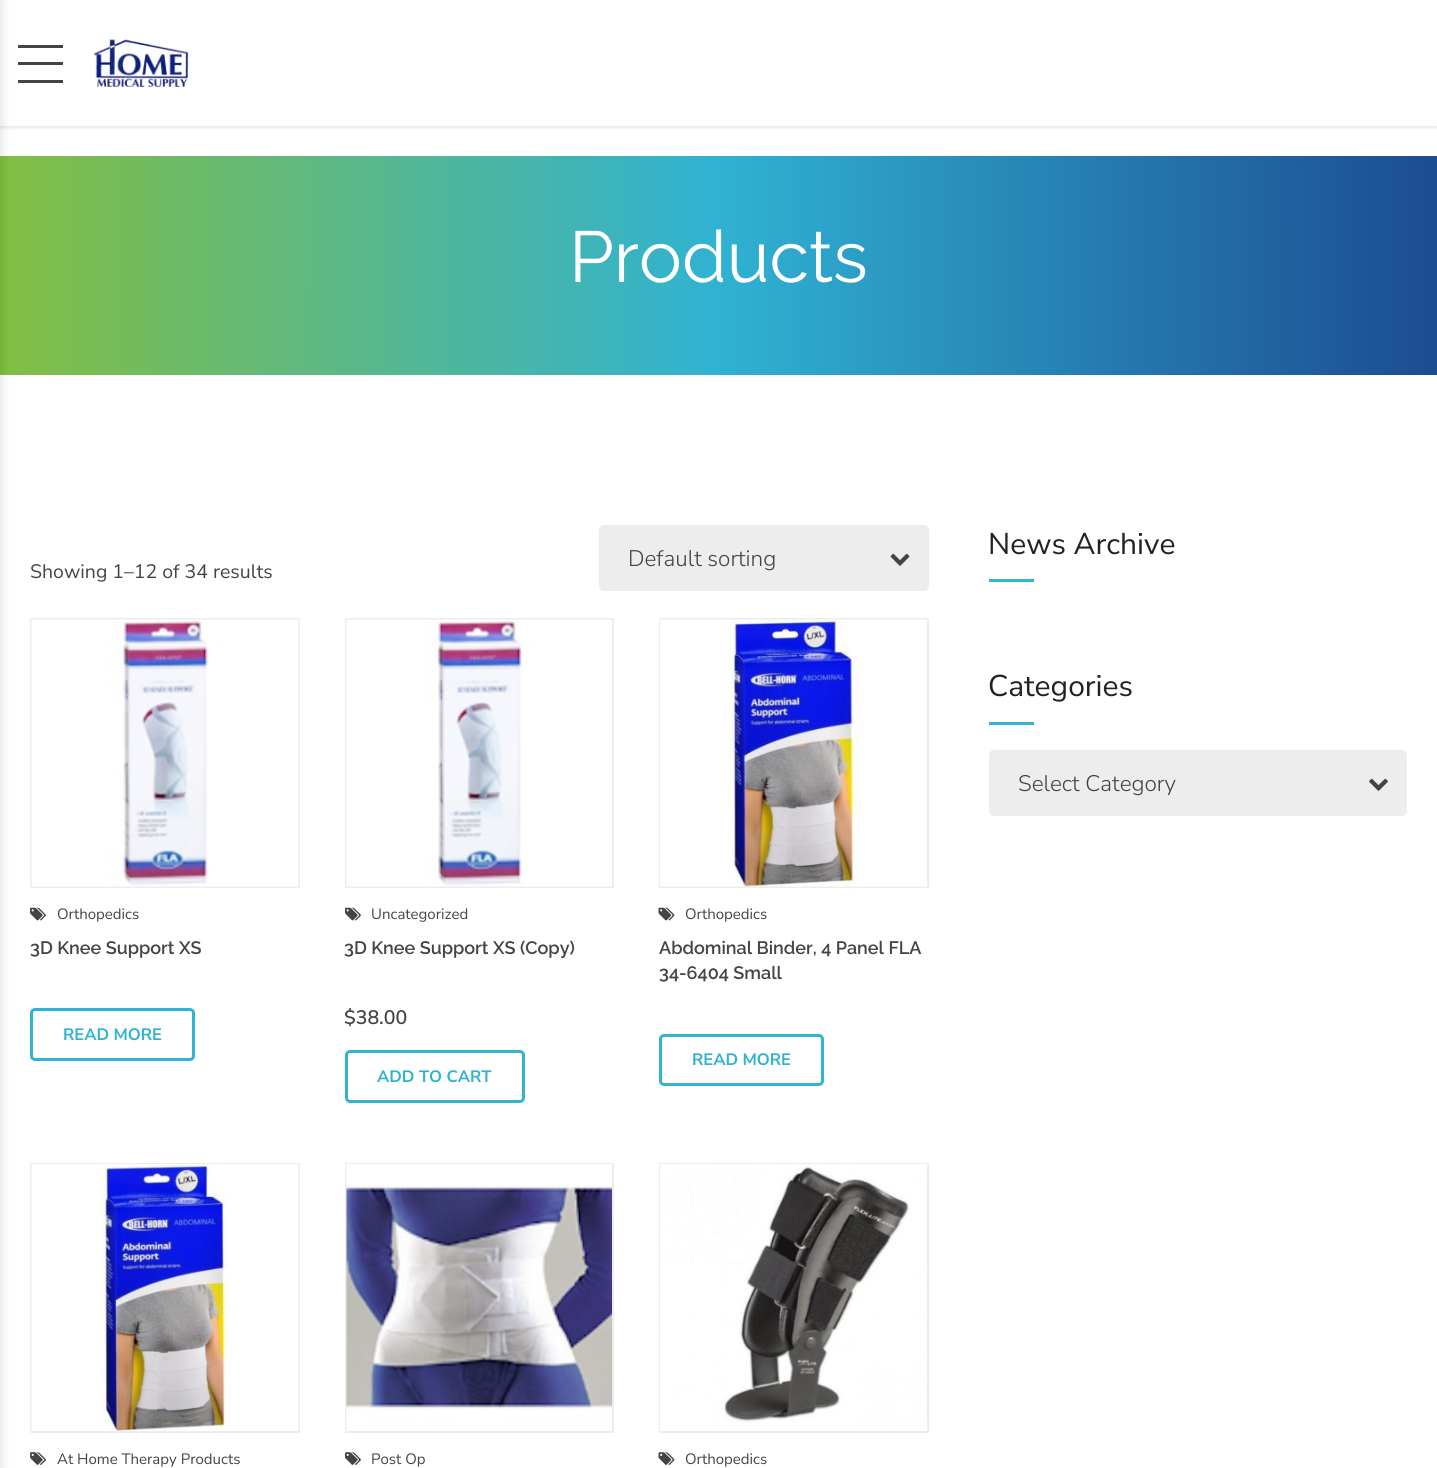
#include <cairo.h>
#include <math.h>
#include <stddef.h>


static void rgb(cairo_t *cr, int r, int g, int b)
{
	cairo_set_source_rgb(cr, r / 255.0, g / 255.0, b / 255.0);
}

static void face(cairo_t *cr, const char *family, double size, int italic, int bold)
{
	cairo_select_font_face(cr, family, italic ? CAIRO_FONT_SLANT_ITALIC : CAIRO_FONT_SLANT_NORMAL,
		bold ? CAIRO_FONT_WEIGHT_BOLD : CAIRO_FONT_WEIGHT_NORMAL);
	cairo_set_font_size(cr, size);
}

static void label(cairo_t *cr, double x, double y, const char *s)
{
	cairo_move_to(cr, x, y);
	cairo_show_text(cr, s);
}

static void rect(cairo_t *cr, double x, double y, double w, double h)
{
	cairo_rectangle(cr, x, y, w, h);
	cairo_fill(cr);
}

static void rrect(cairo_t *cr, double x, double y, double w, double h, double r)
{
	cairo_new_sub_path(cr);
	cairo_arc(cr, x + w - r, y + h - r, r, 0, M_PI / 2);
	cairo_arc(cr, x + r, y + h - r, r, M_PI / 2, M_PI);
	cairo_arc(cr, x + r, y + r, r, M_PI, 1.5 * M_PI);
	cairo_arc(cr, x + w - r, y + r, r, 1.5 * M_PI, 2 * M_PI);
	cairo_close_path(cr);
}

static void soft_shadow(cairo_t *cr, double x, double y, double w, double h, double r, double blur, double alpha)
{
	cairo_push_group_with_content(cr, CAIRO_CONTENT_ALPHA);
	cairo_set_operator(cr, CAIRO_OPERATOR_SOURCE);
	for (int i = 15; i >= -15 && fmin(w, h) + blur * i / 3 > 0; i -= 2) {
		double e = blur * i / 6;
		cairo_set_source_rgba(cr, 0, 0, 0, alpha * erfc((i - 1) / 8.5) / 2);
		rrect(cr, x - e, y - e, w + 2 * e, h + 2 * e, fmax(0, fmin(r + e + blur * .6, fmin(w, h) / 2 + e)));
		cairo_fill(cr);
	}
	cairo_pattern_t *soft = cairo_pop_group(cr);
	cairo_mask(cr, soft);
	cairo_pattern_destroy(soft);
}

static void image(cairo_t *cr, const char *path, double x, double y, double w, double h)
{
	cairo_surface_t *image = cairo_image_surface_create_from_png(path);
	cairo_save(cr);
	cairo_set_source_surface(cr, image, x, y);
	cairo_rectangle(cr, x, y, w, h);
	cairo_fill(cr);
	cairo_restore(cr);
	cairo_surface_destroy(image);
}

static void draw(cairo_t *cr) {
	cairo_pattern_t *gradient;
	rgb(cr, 255, 255, 255);
	cairo_paint(cr);
	gradient = cairo_pattern_create_linear(0, 266, 1437, 265);
	cairo_pattern_add_color_stop_rgba(gradient, 0, 0.51, 0.745, 0.259, 1);
	cairo_pattern_add_color_stop_rgba(gradient, 0.5, 0.188, 0.698, 0.824, 1);
	cairo_pattern_add_color_stop_rgba(gradient, 1, 0.11, 0.298, 0.576, 1);
	cairo_set_source(cr, gradient);
	cairo_pattern_destroy(gradient);
	rect(cr, 0, 156, 1437, 219);
	rgb(cr, 0, 0, 0);
	soft_shadow(cr, -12, 0, 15, 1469, 0, 4, 0.1);
	cairo_save(cr);
	cairo_rectangle(cr, 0, 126, 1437, 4);
	cairo_clip(cr);
	soft_shadow(cr, 0, 2, 1437, 126, 0, 2, 0.1);
	cairo_restore(cr);
	rgb(cr, 68, 68, 68);
	rect(cr, 18, 45, 45, 3);
	rect(cr, 18, 62, 45, 3);
	rect(cr, 18, 80, 45, 3);
	image(cr, "image0.png", 93, 39, 96, 49);
	face(cr, "Raleway", 72, 0, 0);
	rgb(cr, 255, 255, 255);
	label(cr, 569, 282, "Products");
	rgb(cr, 237, 237, 237);
	rrect(cr, 599, 525, 330, 66, 5);
	cairo_fill(cr);
	face(cr, "Nunito Sans Light", 22.5, 0, 0);
	rgb(cr, 68, 68, 68);
	label(cr, 628, 566, "Default sorting");
	image(cr, "image1.png", 890, 553, 20, 13);
	face(cr, "Nunito Sans", 19.5, 0, 0);
	label(cr, 30, 578, "Showing 1–12 of 34 results");
	cairo_rectangle(cr, 31, 619, 268, 268);
	rgb(cr, 237, 237, 237);
	cairo_stroke(cr);
	image(cr, "image2.png", 31, 619, 268, 268);
	image(cr, "image3.png", 30, 907, 16, 14);
	face(cr, "Nunito Sans", 15, 0, 0);
	rgb(cr, 68, 68, 68);
	label(cr, 57, 919, "Orthopedics");
	face(cr, "Raleway SemiBold", 18, 0, 0);
	label(cr, 30, 954, "3D Knee Support XS");
	rrect(cr, 31.5, 1009.5, 162, 50, 3.5);
	rgb(cr, 48, 178, 210);
	cairo_set_line_width(cr, 3);
	cairo_stroke(cr);
	face(cr, "Nunito Sans", 16.5, 0, 1);
	label(cr, 63, 1040, "READ MORE");
	cairo_rectangle(cr, 346, 619, 267, 268);
	rgb(cr, 237, 237, 237);
	cairo_set_line_width(cr, 2);
	cairo_stroke(cr);
	image(cr, "image4.png", 346, 619, 266, 268);
	image(cr, "image3.png", 345, 907, 16, 14);
	face(cr, "Nunito Sans", 15, 0, 0);
	rgb(cr, 68, 68, 68);
	label(cr, 371, 919, "Uncategorized");
	face(cr, "Raleway SemiBold", 18, 0, 0);
	label(cr, 344, 954, "3D Knee Support XS (Copy)");
	face(cr, "Nunito Sans SemiBold", 19.5, 0, 0);
	label(cr, 344, 1024, "$38.00");
	rrect(cr, 346.5, 1051.5, 177, 50, 3.5);
	rgb(cr, 48, 178, 210);
	cairo_set_line_width(cr, 3);
	cairo_stroke(cr);
	face(cr, "Nunito Sans", 16.5, 0, 1);
	label(cr, 377, 1082, "ADD TO CART");
	cairo_rectangle(cr, 660, 619, 268, 268);
	rgb(cr, 237, 237, 237);
	cairo_set_line_width(cr, 2);
	cairo_stroke(cr);
	image(cr, "image5.png", 660, 619, 267, 268);
	image(cr, "image6.png", 658, 907, 17, 14);
	face(cr, "Nunito Sans", 15, 0, 0);
	rgb(cr, 68, 68, 68);
	label(cr, 685, 919, "Orthopedics");
	face(cr, "Raleway SemiBold", 18, 0, 0);
	label(cr, 659, 954, "Abdominal Binder, 4 Panel FLA");
	label(cr, 659, 979, "34-6404 Small");
	rrect(cr, 660.5, 1035.5, 162, 49, 3.5);
	rgb(cr, 48, 178, 210);
	cairo_set_line_width(cr, 3);
	cairo_stroke(cr);
	face(cr, "Nunito Sans", 16.5, 0, 1);
	label(cr, 692, 1065, "READ MORE");
	cairo_rectangle(cr, 31, 1164, 268, 268);
	rgb(cr, 237, 237, 237);
	cairo_set_line_width(cr, 2);
	cairo_stroke(cr);
	image(cr, "image7.png", 31, 1164, 268, 267);
	image(cr, "image8.png", 30, 1452, 16, 13);
	face(cr, "Nunito Sans", 15, 0, 0);
	rgb(cr, 68, 68, 68);
	label(cr, 57, 1464, "At Home Therapy Products");
	cairo_rectangle(cr, 346, 1164, 267, 268);
	rgb(cr, 237, 237, 237);
	cairo_stroke(cr);
	image(cr, "image9.png", 346, 1164, 266, 267);
	image(cr, "image8.png", 345, 1452, 16, 13);
	rgb(cr, 68, 68, 68);
	label(cr, 371, 1464, "Post Op");
	cairo_rectangle(cr, 660, 1164, 268, 268);
	rgb(cr, 237, 237, 237);
	cairo_stroke(cr);
	image(cr, "image10.png", 660, 1164, 267, 267);
	image(cr, "image11.png", 658, 1452, 17, 13);
	rgb(cr, 68, 68, 68);
	label(cr, 685, 1464, "Orthopedics");
	face(cr, "Nunito Sans", 30, 0, 0);
	rgb(cr, 34, 34, 34);
	label(cr, 988, 554, "News Archive");
	rgb(cr, 48, 178, 210);
	rect(cr, 989, 579, 45, 3);
	rgb(cr, 34, 34, 34);
	label(cr, 988, 696, "Categories");
	rgb(cr, 48, 178, 210);
	rect(cr, 989, 722, 45, 3);
	rgb(cr, 237, 237, 237);
	rrect(cr, 989, 750, 418, 66, 5);
	cairo_fill(cr);
	face(cr, "Nunito Sans Light", 22.5, 0, 0);
	rgb(cr, 68, 68, 68);
	label(cr, 1018, 791, "Select Category");
	image(cr, "image12.png", 1369, 778, 19, 13);
}

int main(void) {
	cairo_surface_t *surface = cairo_image_surface_create(CAIRO_FORMAT_RGB24, 1437, 1468);
	cairo_t *cr = cairo_create(surface);
	cairo_font_options_t *options = cairo_font_options_create();
	cairo_font_options_set_hint_metrics(options, CAIRO_HINT_METRICS_OFF);
	cairo_font_options_set_hint_style(options, CAIRO_HINT_STYLE_NONE);
	cairo_set_font_options(cr, options);
	cairo_set_miter_limit(cr, 4);
	draw(cr);
	cairo_surface_write_to_png(surface, "render.png");
	cairo_font_options_destroy(options);
	cairo_destroy(cr);
	cairo_surface_destroy(surface);
	return 0;
}
